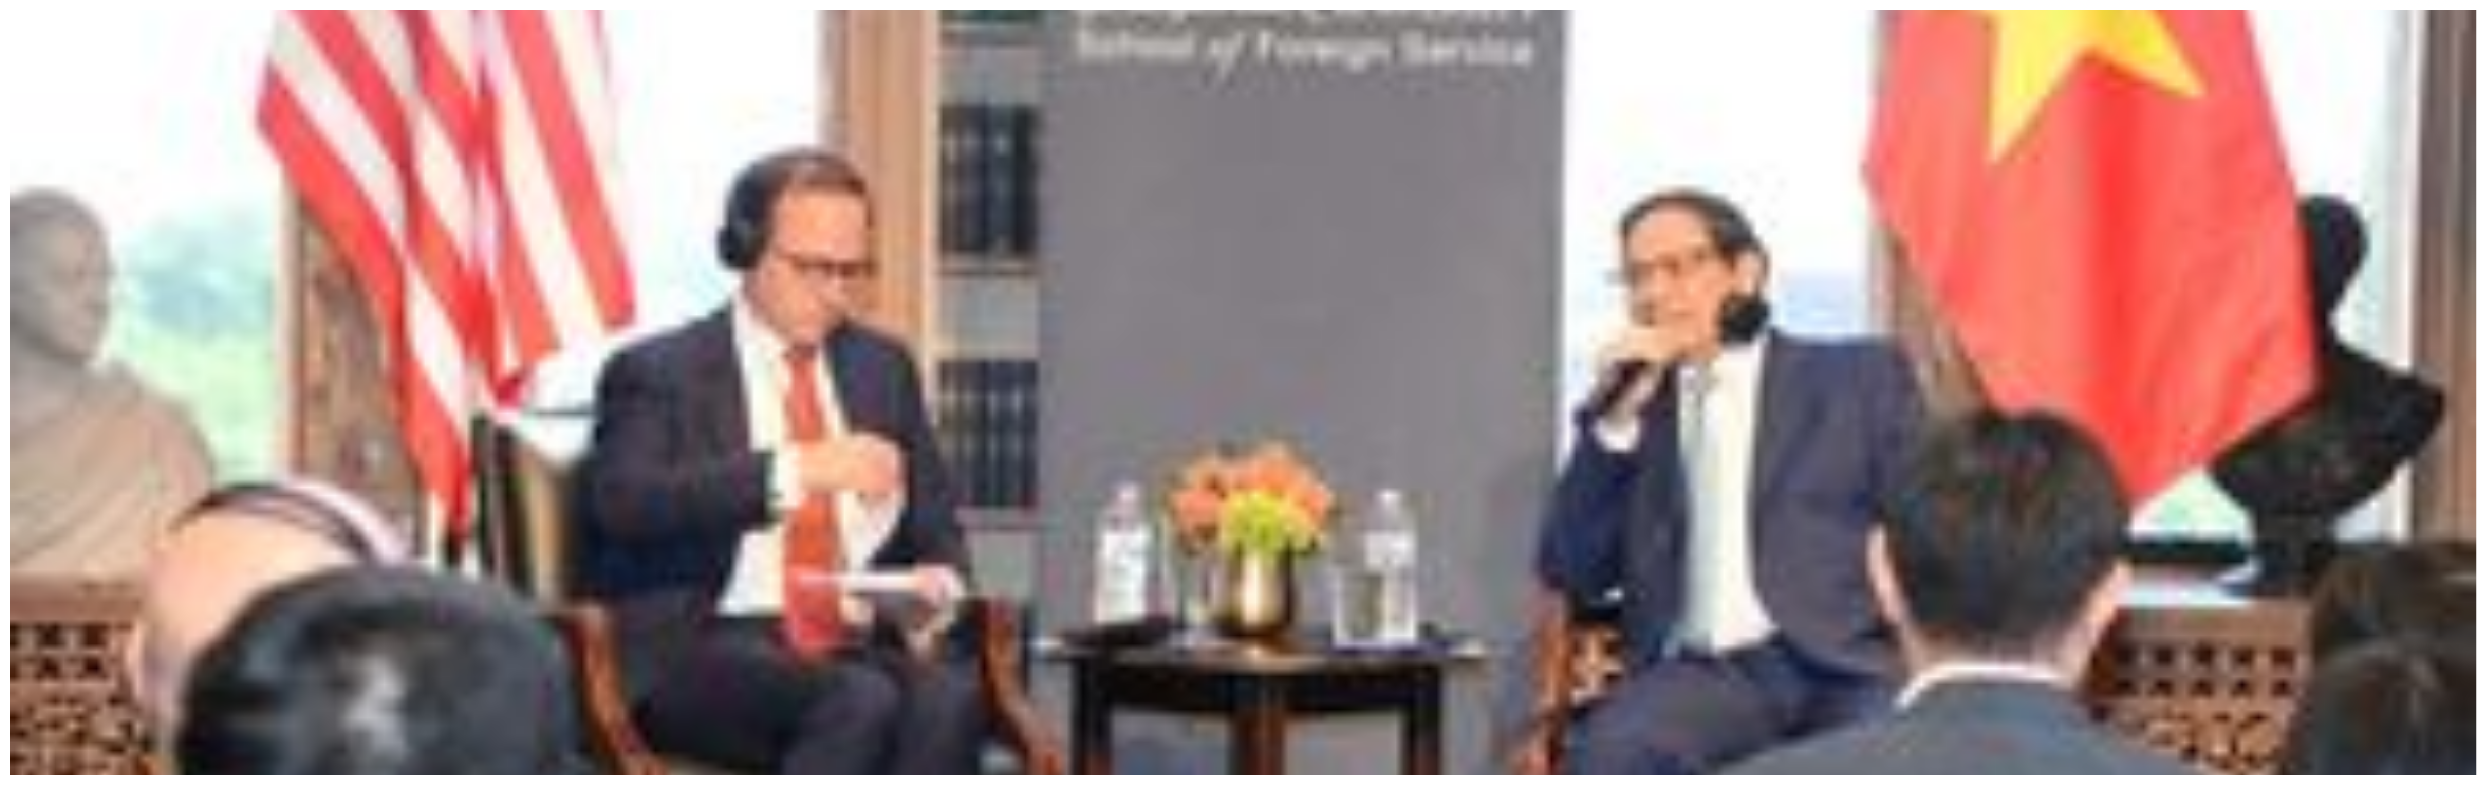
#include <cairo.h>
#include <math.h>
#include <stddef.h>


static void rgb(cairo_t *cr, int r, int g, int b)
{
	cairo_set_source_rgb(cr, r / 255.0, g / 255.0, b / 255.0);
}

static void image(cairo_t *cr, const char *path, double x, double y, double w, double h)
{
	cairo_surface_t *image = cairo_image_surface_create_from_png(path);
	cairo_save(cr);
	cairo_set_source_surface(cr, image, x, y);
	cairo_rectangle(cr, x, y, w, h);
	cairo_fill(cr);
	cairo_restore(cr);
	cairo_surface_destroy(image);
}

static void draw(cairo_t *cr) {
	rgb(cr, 255, 255, 255);
	cairo_paint(cr);
	image(cr, "image0.png", 10, 10, 2467, 765);
}

int main(void) {
	cairo_surface_t *surface = cairo_image_surface_create(CAIRO_FORMAT_RGB24, 2486, 785);
	cairo_t *cr = cairo_create(surface);
	cairo_font_options_t *options = cairo_font_options_create();
	cairo_font_options_set_hint_metrics(options, CAIRO_HINT_METRICS_OFF);
	cairo_font_options_set_hint_style(options, CAIRO_HINT_STYLE_NONE);
	cairo_set_font_options(cr, options);
	cairo_set_miter_limit(cr, 4);
	draw(cr);
	cairo_surface_write_to_png(surface, "render.png");
	cairo_font_options_destroy(options);
	cairo_destroy(cr);
	cairo_surface_destroy(surface);
	return 0;
}
